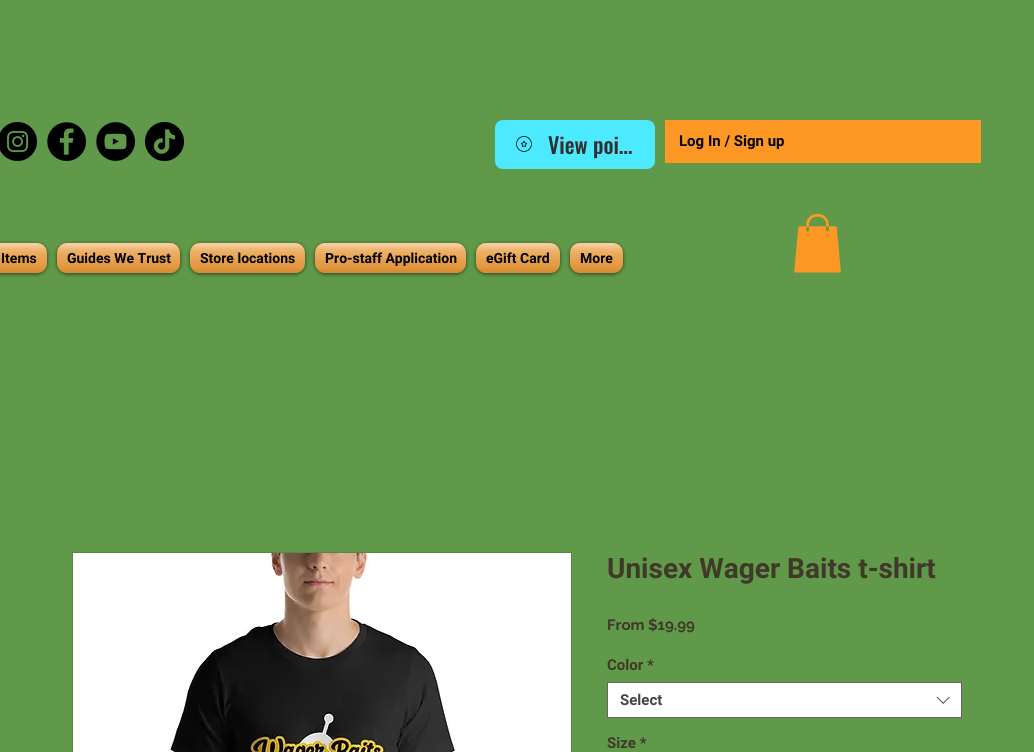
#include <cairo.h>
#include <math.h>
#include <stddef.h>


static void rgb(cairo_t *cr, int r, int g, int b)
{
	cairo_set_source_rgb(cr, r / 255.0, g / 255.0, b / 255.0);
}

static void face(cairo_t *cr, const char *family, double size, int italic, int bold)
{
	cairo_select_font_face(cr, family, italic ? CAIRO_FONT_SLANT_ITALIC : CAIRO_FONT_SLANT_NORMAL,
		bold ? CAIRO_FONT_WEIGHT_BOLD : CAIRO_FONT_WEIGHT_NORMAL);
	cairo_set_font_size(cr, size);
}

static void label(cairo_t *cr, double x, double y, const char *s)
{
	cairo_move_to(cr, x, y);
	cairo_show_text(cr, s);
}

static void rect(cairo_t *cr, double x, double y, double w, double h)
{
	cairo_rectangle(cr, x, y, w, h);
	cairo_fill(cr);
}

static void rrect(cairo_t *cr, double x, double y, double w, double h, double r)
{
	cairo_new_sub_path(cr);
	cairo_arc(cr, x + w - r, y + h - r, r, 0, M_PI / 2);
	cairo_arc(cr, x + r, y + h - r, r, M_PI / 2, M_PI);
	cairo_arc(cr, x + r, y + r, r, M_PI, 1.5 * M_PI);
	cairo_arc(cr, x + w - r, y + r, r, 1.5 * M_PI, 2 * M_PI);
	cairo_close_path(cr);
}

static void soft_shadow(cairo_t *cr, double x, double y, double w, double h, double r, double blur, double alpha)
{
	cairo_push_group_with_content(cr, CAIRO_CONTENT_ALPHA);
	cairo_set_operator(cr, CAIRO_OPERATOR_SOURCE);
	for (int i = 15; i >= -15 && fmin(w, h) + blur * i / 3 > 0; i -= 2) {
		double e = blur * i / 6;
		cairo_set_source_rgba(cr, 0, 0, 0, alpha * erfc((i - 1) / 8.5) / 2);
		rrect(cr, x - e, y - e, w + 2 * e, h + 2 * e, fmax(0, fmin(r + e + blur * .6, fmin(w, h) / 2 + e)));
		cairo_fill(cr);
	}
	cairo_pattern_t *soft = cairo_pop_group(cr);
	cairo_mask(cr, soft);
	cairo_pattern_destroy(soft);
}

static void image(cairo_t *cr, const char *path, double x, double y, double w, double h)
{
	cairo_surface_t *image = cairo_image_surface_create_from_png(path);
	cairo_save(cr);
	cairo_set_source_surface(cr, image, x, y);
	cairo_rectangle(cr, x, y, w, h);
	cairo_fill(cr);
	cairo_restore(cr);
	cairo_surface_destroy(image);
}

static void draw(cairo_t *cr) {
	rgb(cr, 95, 153, 73);
	cairo_paint(cr);
	image(cr, "image0.png", 0, 122, 37, 39);
	image(cr, "image1.png", 47, 122, 39, 39);
	image(cr, "image2.png", 96, 122, 39, 39);
	image(cr, "image3.png", 145, 122, 39, 39);
	rgb(cr, 77, 233, 255);
	rrect(cr, 495, 120, 160, 49, 8);
	cairo_fill(cr);
	image(cr, "image4.png", 516, 136, 16, 16);
	face(cr, "Oswald Medium", 22, 0, 0);
	rgb(cr, 48, 48, 48);
	label(cr, 548, 154, "View poi…");
	rgb(cr, 252, 152, 35);
	rect(cr, 665, 120, 316, 43);
	face(cr, "Roboto", 15, 0, 1);
	rgb(cr, 0, 0, 0);
	label(cr, 679, 146, "Log In / Sign up");
	rgb(cr, 0, 0, 0);
	soft_shadow(cr, -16, 244, 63, 30, 10, 2, 0.6);
	rgb(cr, 252, 152, 35);
	rrect(cr, -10, 243, 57, 30, 10);
	cairo_fill(cr);
	image(cr, "image5.png", 0, 243, 47, 30);
	image(cr, "image6.png", 0, 243, 47, 30);
	face(cr, "Roboto", 14, 0, 1);
	rgb(cr, 0, 0, 0);
	label(cr, 1, 263, "Items");
	rgb(cr, 0, 0, 0);
	soft_shadow(cr, 57, 244, 123, 30, 10, 2, 0.6);
	rgb(cr, 252, 152, 35);
	rrect(cr, 57, 243, 123, 30, 10);
	cairo_fill(cr);
	image(cr, "image7.png", 57, 243, 123, 30);
	image(cr, "image8.png", 57, 243, 123, 30);
	rgb(cr, 0, 0, 0);
	label(cr, 67, 263, "Guides We Trust");
	rgb(cr, 0, 0, 0);
	soft_shadow(cr, 190, 244, 115, 30, 10, 2, 0.6);
	rgb(cr, 252, 152, 35);
	rrect(cr, 190, 243, 115, 30, 10);
	cairo_fill(cr);
	image(cr, "image9.png", 190, 243, 115, 30);
	image(cr, "image10.png", 190, 243, 115, 30);
	rgb(cr, 0, 0, 0);
	label(cr, 200, 263, "Store locations");
	rgb(cr, 0, 0, 0);
	soft_shadow(cr, 315, 244, 151, 30, 10, 2, 0.6);
	rgb(cr, 252, 152, 35);
	rrect(cr, 315, 243, 151, 30, 10);
	cairo_fill(cr);
	image(cr, "image11.png", 315, 243, 151, 30);
	image(cr, "image12.png", 315, 243, 151, 30);
	rgb(cr, 0, 0, 0);
	label(cr, 325, 263, "Pro-staff Application");
	rgb(cr, 0, 0, 0);
	soft_shadow(cr, 476, 244, 84, 30, 10, 2, 0.6);
	rgb(cr, 252, 152, 35);
	rrect(cr, 476, 243, 84, 30, 10);
	cairo_fill(cr);
	image(cr, "image13.png", 476, 243, 84, 30);
	image(cr, "image14.png", 476, 243, 84, 30);
	rgb(cr, 0, 0, 0);
	label(cr, 486, 263, "eGift Card");
	rgb(cr, 0, 0, 0);
	soft_shadow(cr, 570, 244, 53, 30, 10, 2, 0.6);
	rgb(cr, 252, 152, 35);
	rrect(cr, 570, 243, 53, 30, 10);
	cairo_fill(cr);
	image(cr, "image15.png", 570, 243, 53, 30);
	image(cr, "image16.png", 570, 243, 53, 30);
	rgb(cr, 0, 0, 0);
	label(cr, 580, 263, "More");
	image(cr, "image17.png", 794, 214, 47, 59);
	cairo_rectangle(cr, 72.5, 552.5, 499, 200);
	rgb(cr, 89, 134, 67);
	cairo_set_line_width(cr, 1);
	cairo_stroke(cr);
	image(cr, "image18.png", 73, 553, 498, 199);
	face(cr, "Roboto", 28, 0, 1);
	rgb(cr, 64, 57, 42);
	label(cr, 607, 578, "Unisex Wager Baits t-shirt");
	face(cr, "Raleway", 15, 0, 1);
	label(cr, 607, 630, "From $19.99");
	face(cr, "Roboto", 15, 0, 1);
	label(cr, 607, 670, "Color *");
	rgb(cr, 255, 255, 255);
	cairo_rectangle(cr, 607.5, 682.5, 354, 35);
	cairo_fill_preserve(cr);
	rgb(cr, 102, 102, 102);
	cairo_stroke(cr);
	rgb(cr, 68, 68, 68);
	label(cr, 620, 705, "Select");
	image(cr, "image19.png", 936, 696, 14, 8);
	rgb(cr, 64, 57, 42);
	label(cr, 607, 748, "Size *");
}

int main(void) {
	cairo_surface_t *surface = cairo_image_surface_create(CAIRO_FORMAT_RGB24, 1034, 752);
	cairo_t *cr = cairo_create(surface);
	cairo_font_options_t *options = cairo_font_options_create();
	cairo_font_options_set_hint_metrics(options, CAIRO_HINT_METRICS_OFF);
	cairo_font_options_set_hint_style(options, CAIRO_HINT_STYLE_NONE);
	cairo_set_font_options(cr, options);
	cairo_set_miter_limit(cr, 4);
	draw(cr);
	cairo_surface_write_to_png(surface, "render.png");
	cairo_font_options_destroy(options);
	cairo_destroy(cr);
	cairo_surface_destroy(surface);
	return 0;
}
